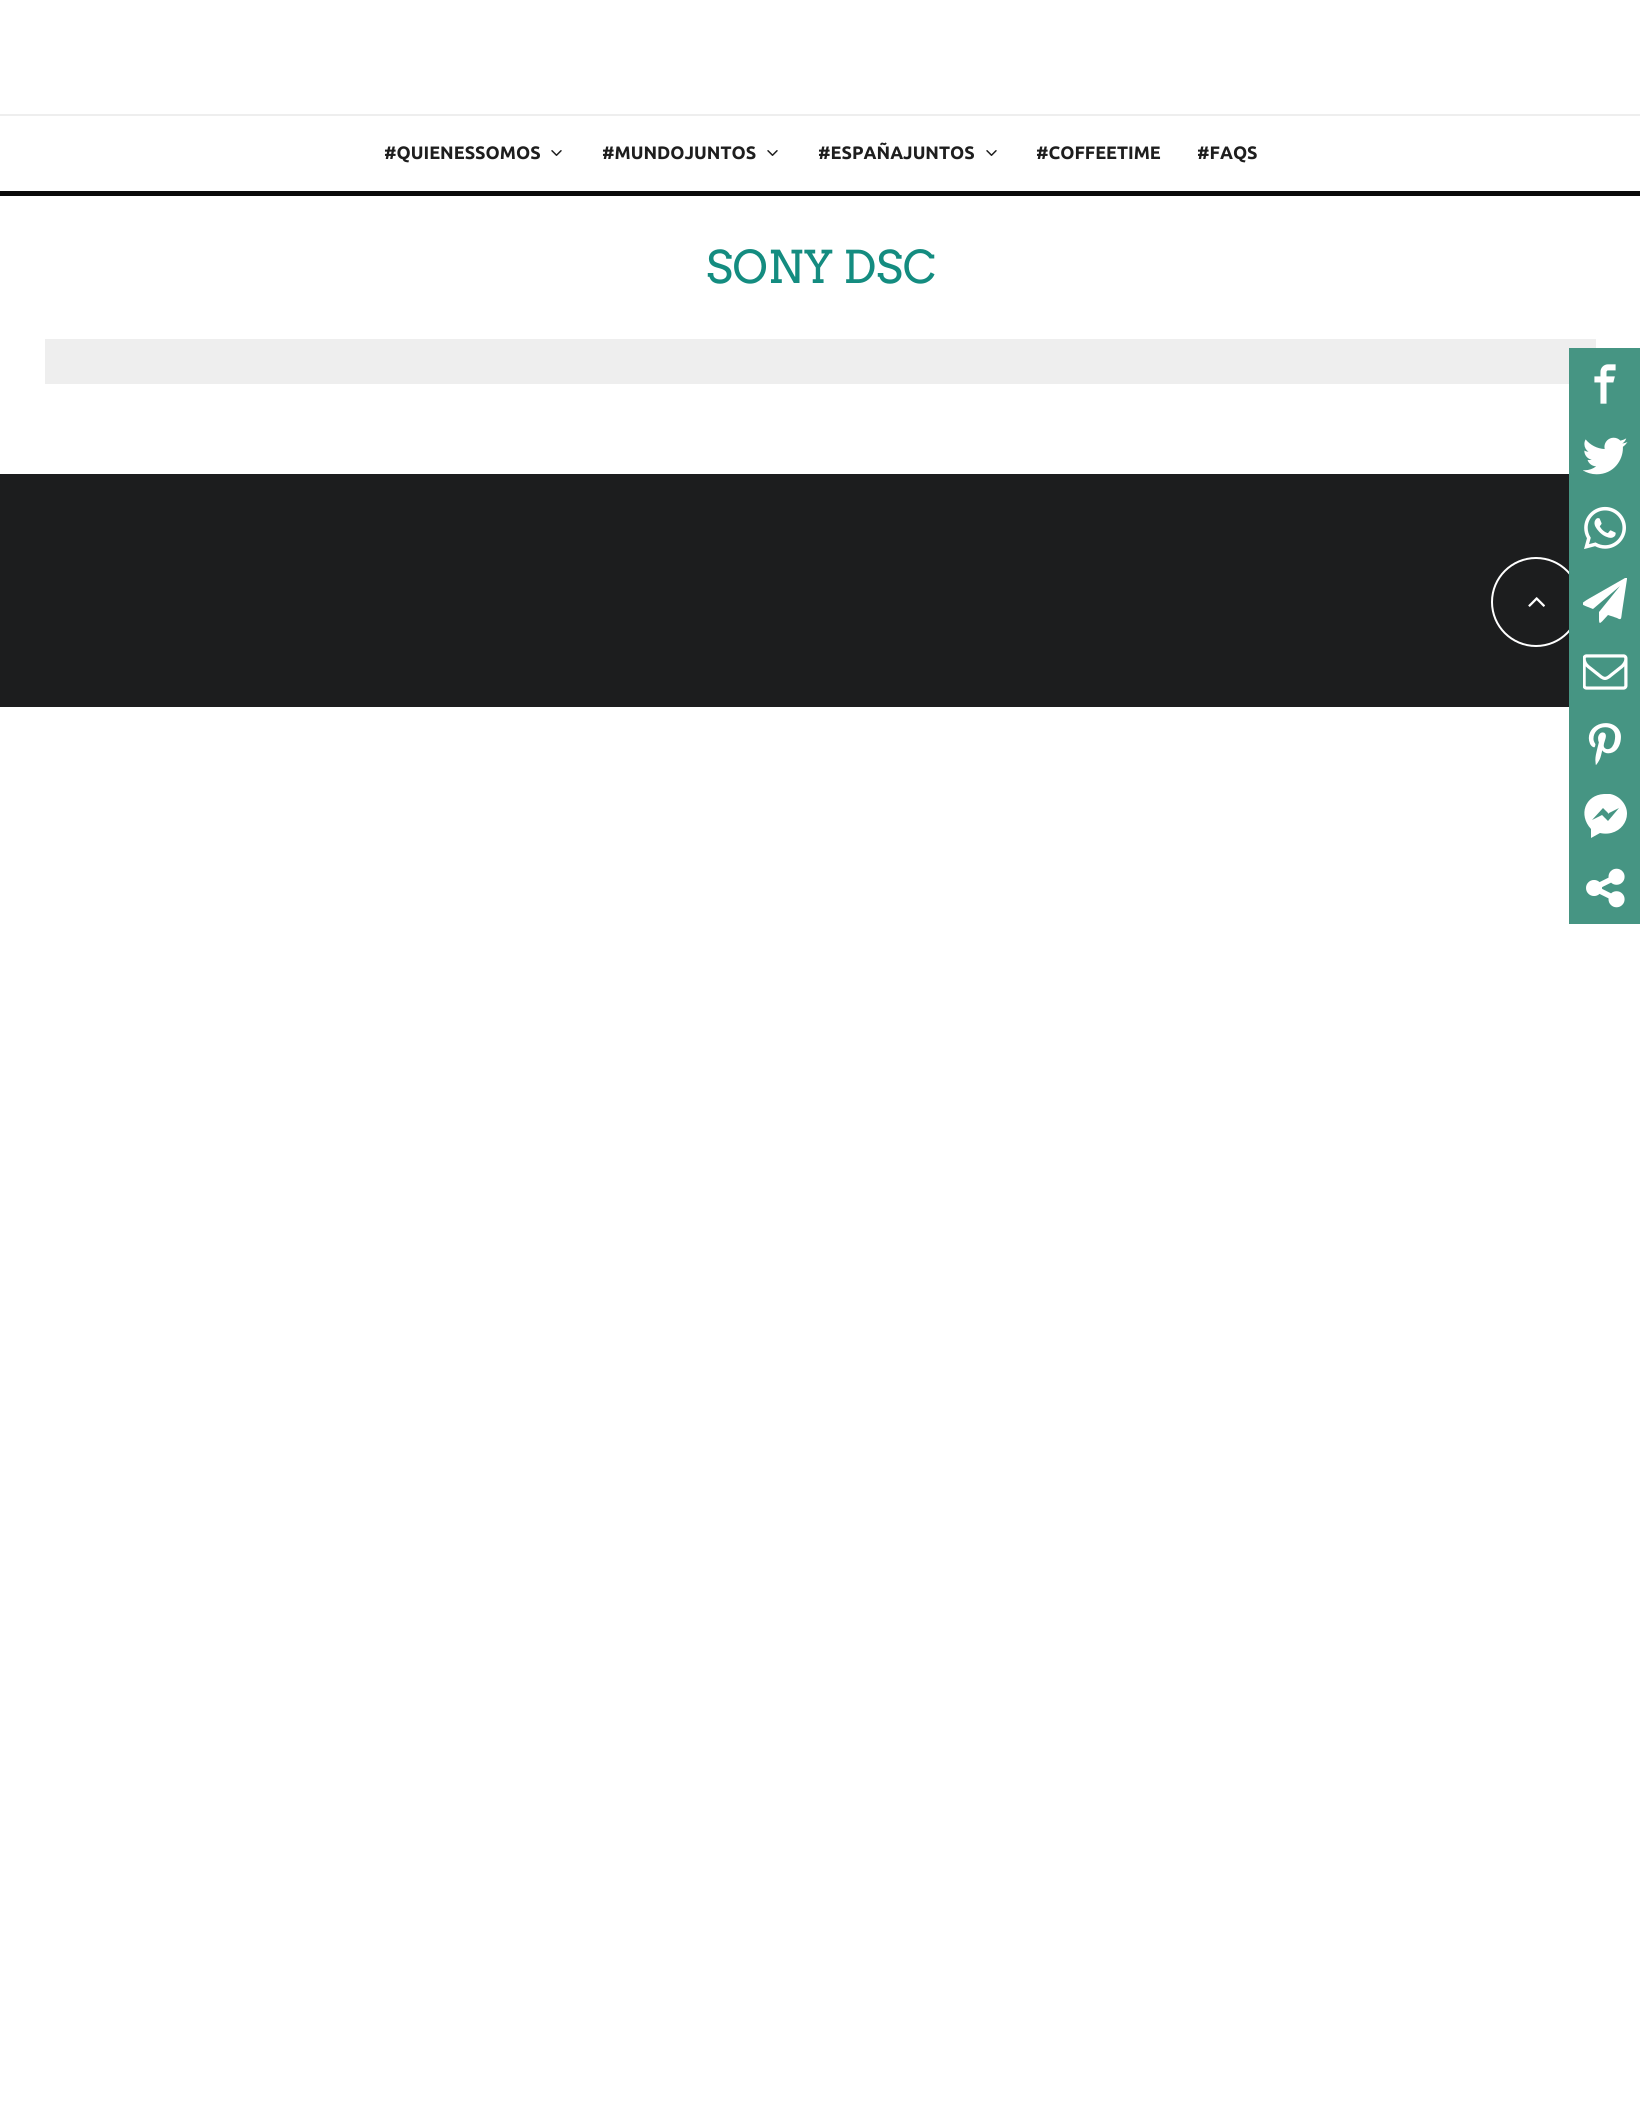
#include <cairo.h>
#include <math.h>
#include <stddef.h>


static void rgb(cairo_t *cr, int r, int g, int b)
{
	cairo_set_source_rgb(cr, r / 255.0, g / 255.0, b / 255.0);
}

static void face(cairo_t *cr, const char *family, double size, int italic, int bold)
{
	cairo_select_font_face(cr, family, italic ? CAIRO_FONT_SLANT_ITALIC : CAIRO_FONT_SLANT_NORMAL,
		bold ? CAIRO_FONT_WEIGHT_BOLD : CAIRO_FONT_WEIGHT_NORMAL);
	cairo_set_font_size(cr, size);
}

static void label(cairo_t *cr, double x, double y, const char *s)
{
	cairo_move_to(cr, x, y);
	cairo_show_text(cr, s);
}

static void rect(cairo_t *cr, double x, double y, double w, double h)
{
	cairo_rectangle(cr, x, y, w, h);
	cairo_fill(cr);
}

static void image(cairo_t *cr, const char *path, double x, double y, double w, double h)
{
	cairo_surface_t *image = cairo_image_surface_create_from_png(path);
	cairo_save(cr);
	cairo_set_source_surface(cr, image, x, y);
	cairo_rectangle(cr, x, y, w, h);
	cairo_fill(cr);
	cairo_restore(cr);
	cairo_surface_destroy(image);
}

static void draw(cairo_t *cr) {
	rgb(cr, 255, 255, 255);
	cairo_paint(cr);
	rgb(cr, 238, 238, 238);
	rect(cr, 0, 114, 1640, 2);
	rgb(cr, 10, 10, 10);
	rect(cr, 0, 191, 1640, 5);
	face(cr, "Ubuntu", 18, 0, 1);
	rgb(cr, 30, 30, 30);
	label(cr, 384, 159, "#QUIENESSOMOS");
	image(cr, "image0.png", 551, 150, 11, 6);
	label(cr, 602, 159, "#MUNDOJUNTOS");
	image(cr, "image0.png", 767, 150, 11, 6);
	label(cr, 818, 159, "#ESPAÑAJUNTOS");
	image(cr, "image0.png", 986, 150, 11, 6);
	label(cr, 1036, 159, "#COFFEETIME");
	label(cr, 1197, 159, "#FAQS");
	face(cr, "Arvo", 45, 0, 0);
	rgb(cr, 20, 140, 128);
	label(cr, 706, 283, "SONY DSC");
	rgb(cr, 238, 238, 238);
	rect(cr, 45, 339, 1551, 45);
	rgb(cr, 28, 29, 30);
	rect(cr, 0, 474, 1569, 233);
	cairo_new_path(cr);
	cairo_arc(cr, 1536, 602, 44, 0, 2 * M_PI);
	rgb(cr, 255, 255, 255);
	cairo_stroke(cr);
	image(cr, "image1.png", 1528, 597, 17, 10);
	rgb(cr, 70, 149, 131);
	rect(cr, 1569, 348, 71, 576);
	image(cr, "image2.png", 1594, 364, 22, 40);
	image(cr, "image3.png", 1583, 437, 45, 38);
	image(cr, "image4.png", 1584, 506, 42, 43);
	cairo_save(cr);
	cairo_rectangle(cr, 1583, 578, 45, 45);
	cairo_clip(cr);
	rgb(cr, 255, 255, 255);
	cairo_new_path(cr);
	cairo_move_to(cr, 1627, 578);
	cairo_line_to(cr, 1627, 579);
	cairo_line_to(cr, 1622, 612);
	cairo_curve_to(cr, 1621, 618, 1622, 621, 1617, 618);
	cairo_line_to(cr, 1608, 615);
	cairo_curve_to(cr, 1598, 626, 1599, 626, 1599, 612);
	cairo_line_to(cr, 1620, 586);
	cairo_line_to(cr, 1593, 609);
	cairo_curve_to(cr, 1581, 604, 1578, 605, 1590, 598);
	cairo_line_to(cr, 1625, 578);
	cairo_close_path(cr);
	cairo_fill(cr);
	cairo_restore(cr);
	image(cr, "image5.png", 1583, 654, 45, 36);
	image(cr, "image6.png", 1588, 723, 33, 42);
	cairo_save(cr);
	cairo_rectangle(cr, 1583, 794, 45, 45);
	cairo_clip(cr);
	rgb(cr, 255, 255, 255);
	cairo_new_path(cr);
	cairo_move_to(cr, 1604, 794);
	cairo_curve_to(cr, 1585, 795, 1578, 815, 1591, 829);
	cairo_line_to(cr, 1591, 838);
	cairo_line_to(cr, 1600, 833);
	cairo_curve_to(cr, 1622, 838, 1637, 813, 1619, 798);
	cairo_curve_to(cr, 1615, 795, 1610, 793, 1604, 794);
	cairo_close_path(cr);
	cairo_move_to(cr, 1609, 813);
	cairo_line_to(cr, 1619, 808);
	cairo_line_to(cr, 1608, 821);
	cairo_line_to(cr, 1602, 815);
	cairo_line_to(cr, 1592, 820);
	cairo_line_to(cr, 1603, 808);
	cairo_line_to(cr, 1609, 814);
	cairo_close_path(cr);
	cairo_fill(cr);
	cairo_restore(cr);
	image(cr, "image7.png", 1586, 868, 39, 40);
}

int main(void) {
	cairo_surface_t *surface = cairo_image_surface_create(CAIRO_FORMAT_RGB24, 1640, 2120);
	cairo_t *cr = cairo_create(surface);
	cairo_font_options_t *options = cairo_font_options_create();
	cairo_font_options_set_hint_metrics(options, CAIRO_HINT_METRICS_OFF);
	cairo_font_options_set_hint_style(options, CAIRO_HINT_STYLE_NONE);
	cairo_set_font_options(cr, options);
	cairo_set_miter_limit(cr, 4);
	draw(cr);
	cairo_surface_write_to_png(surface, "render.png");
	cairo_font_options_destroy(options);
	cairo_destroy(cr);
	cairo_surface_destroy(surface);
	return 0;
}
